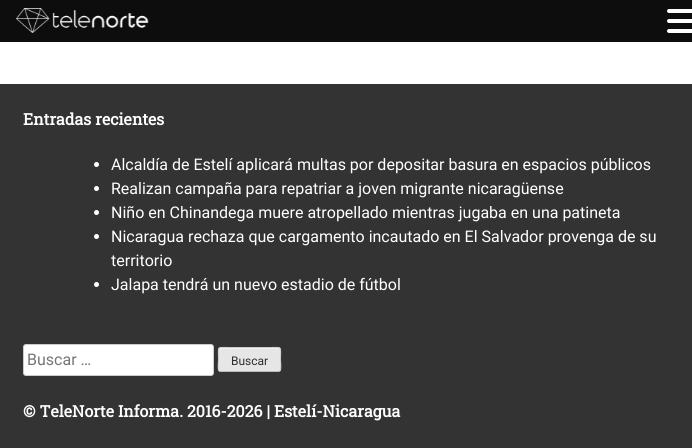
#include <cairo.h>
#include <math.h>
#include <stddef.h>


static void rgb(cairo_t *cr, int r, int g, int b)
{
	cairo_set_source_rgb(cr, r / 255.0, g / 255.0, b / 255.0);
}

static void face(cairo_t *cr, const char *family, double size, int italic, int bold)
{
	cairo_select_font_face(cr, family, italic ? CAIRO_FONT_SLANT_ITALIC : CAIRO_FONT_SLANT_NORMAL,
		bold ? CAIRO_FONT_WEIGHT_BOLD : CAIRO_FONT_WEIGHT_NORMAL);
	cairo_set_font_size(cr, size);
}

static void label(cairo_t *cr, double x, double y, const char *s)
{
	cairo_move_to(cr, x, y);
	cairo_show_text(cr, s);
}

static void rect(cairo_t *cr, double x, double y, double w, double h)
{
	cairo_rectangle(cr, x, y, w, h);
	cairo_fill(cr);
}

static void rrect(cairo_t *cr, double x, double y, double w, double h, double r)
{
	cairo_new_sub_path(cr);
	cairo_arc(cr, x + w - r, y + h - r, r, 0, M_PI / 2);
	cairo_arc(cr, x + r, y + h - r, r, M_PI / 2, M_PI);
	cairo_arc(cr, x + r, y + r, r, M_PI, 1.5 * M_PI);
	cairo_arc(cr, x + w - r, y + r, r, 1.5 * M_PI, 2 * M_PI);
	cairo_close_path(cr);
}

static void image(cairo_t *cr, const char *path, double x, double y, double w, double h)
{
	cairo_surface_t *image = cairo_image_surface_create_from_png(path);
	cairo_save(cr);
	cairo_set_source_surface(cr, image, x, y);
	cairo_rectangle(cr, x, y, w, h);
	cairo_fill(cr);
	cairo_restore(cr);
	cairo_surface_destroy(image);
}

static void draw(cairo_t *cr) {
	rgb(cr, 255, 255, 255);
	cairo_paint(cr);
	rgb(cr, 13, 13, 13);
	rect(cr, 0, 0, 692, 42);
	image(cr, "image0.png", 16, 8, 133, 25);
	rgb(cr, 255, 255, 255);
	rrect(cr, 667, 9, 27, 4, 2);
	cairo_fill(cr);
	rrect(cr, 667, 19, 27, 4, 2);
	cairo_fill(cr);
	rrect(cr, 667, 29, 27, 4, 2);
	cairo_fill(cr);
	rgb(cr, 51, 51, 51);
	rect(cr, 0, 84, 692, 364);
	face(cr, "Roboto Slab", 16, 0, 1);
	rgb(cr, 255, 255, 255);
	label(cr, 23, 125, "Entradas recientes");
	cairo_new_path(cr);
	cairo_arc(cr, 96.5, 164.5, 2.5, 0, 2 * M_PI);
	cairo_fill(cr);
	face(cr, "Roboto", 16, 0, 0);
	label(cr, 111, 170, "Alcaldía de Estelí aplicará multas por depositar basura en espacios públicos");
	cairo_new_path(cr);
	cairo_arc(cr, 96.5, 188.5, 2.5, 0, 2 * M_PI);
	cairo_fill(cr);
	label(cr, 111, 194, "Realizan campaña para repatriar a joven migrante nicaragüense");
	cairo_new_path(cr);
	cairo_arc(cr, 96.5, 212.5, 2.5, 0, 2 * M_PI);
	cairo_fill(cr);
	label(cr, 111, 218, "Niño en Chinandega muere atropellado mientras jugaba en una patineta");
	cairo_new_path(cr);
	cairo_arc(cr, 96.5, 236.5, 2.5, 0, 2 * M_PI);
	cairo_fill(cr);
	label(cr, 111, 242, "Nicaragua rechaza que cargamento incautado en El Salvador provenga de su");
	label(cr, 111, 266, "territorio");
	cairo_new_path(cr);
	cairo_arc(cr, 96.5, 284.5, 2.5, 0, 2 * M_PI);
	cairo_fill(cr);
	label(cr, 111, 290, "Jalapa tendrá un nuevo estadio de fútbol");
	rrect(cr, 23.5, 344.5, 190, 31, 2.5);
	cairo_fill_preserve(cr);
	rgb(cr, 204, 204, 204);
	cairo_set_line_width(cr, 1);
	cairo_stroke(cr);
	rgb(cr, 117, 117, 117);
	label(cr, 27, 365, "Buscar …");
	rgb(cr, 230, 230, 230);
	rrect(cr, 218, 347, 63, 25, 3);
	cairo_fill(cr);
	rgb(cr, 243, 243, 243);
	cairo_set_fill_rule(cr, CAIRO_FILL_RULE_EVEN_ODD);
	cairo_new_path(cr);
	cairo_move_to(cr, 221, 349);
	cairo_line_to(cr, 278, 349);
	cairo_line_to(cr, 280, 350);
	cairo_curve_to(cr, 280, 349, 279, 348, 278, 348);
	cairo_line_to(cr, 221, 348);
	cairo_curve_to(cr, 220, 348, 219, 349, 219, 350);
	cairo_line_to(cr, 219, 352);
	cairo_curve_to(cr, 219, 350, 220, 349, 221, 349);
	cairo_close_path(cr);
	cairo_move_to(cr, 219, 370);
	cairo_line_to(cr, 219, 367);
	cairo_close_path(cr);
	cairo_fill(cr);
	cairo_new_path(cr);
	cairo_move_to(cr, 280, 371);
	cairo_line_to(cr, 278, 371.5);
	cairo_line_to(cr, 221, 371.5);
	cairo_line_to(cr, 219, 371);
	rgb(cr, 187, 187, 187);
	cairo_stroke(cr);
	cairo_new_path(cr);
	cairo_move_to(cr, 219, 371);
	cairo_curve_to(cr, 217.5, 369, 218.5, 362, 218.5, 359.5);
	cairo_curve_to(cr, 218.5, 345.5, 216, 347.5, 230.5, 347.5);
	cairo_line_to(cr, 268.5, 347.5);
	cairo_curve_to(cr, 283, 347.5, 280.5, 345.5, 280.5, 359.5);
	cairo_curve_to(cr, 280.5, 362, 281.5, 369, 280, 371);
	rgb(cr, 204, 204, 204);
	cairo_stroke(cr);
	face(cr, "Roboto", 12, 0, 0);
	rgb(cr, 46, 46, 46);
	label(cr, 231, 365, "Buscar");
	face(cr, "Roboto Slab", 16, 0, 1);
	rgb(cr, 255, 255, 255);
	label(cr, 23, 417, "© TeleNorte Informa. 2016-2026 | Estelí-Nicaragua");
}

int main(void) {
	cairo_surface_t *surface = cairo_image_surface_create(CAIRO_FORMAT_RGB24, 692, 448);
	cairo_t *cr = cairo_create(surface);
	cairo_font_options_t *options = cairo_font_options_create();
	cairo_font_options_set_hint_metrics(options, CAIRO_HINT_METRICS_OFF);
	cairo_font_options_set_hint_style(options, CAIRO_HINT_STYLE_NONE);
	cairo_set_font_options(cr, options);
	cairo_set_miter_limit(cr, 4);
	draw(cr);
	cairo_surface_write_to_png(surface, "render.png");
	cairo_font_options_destroy(options);
	cairo_destroy(cr);
	cairo_surface_destroy(surface);
	return 0;
}
